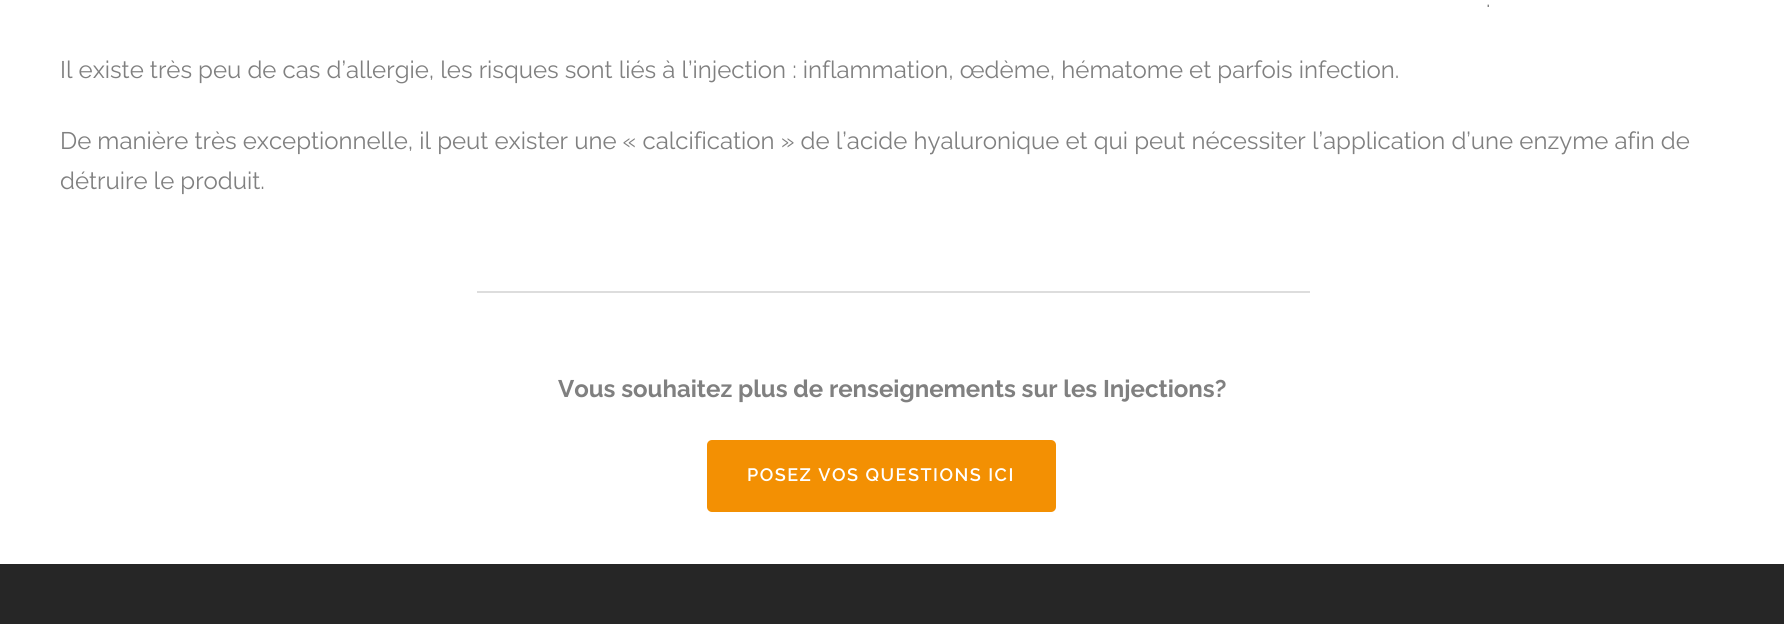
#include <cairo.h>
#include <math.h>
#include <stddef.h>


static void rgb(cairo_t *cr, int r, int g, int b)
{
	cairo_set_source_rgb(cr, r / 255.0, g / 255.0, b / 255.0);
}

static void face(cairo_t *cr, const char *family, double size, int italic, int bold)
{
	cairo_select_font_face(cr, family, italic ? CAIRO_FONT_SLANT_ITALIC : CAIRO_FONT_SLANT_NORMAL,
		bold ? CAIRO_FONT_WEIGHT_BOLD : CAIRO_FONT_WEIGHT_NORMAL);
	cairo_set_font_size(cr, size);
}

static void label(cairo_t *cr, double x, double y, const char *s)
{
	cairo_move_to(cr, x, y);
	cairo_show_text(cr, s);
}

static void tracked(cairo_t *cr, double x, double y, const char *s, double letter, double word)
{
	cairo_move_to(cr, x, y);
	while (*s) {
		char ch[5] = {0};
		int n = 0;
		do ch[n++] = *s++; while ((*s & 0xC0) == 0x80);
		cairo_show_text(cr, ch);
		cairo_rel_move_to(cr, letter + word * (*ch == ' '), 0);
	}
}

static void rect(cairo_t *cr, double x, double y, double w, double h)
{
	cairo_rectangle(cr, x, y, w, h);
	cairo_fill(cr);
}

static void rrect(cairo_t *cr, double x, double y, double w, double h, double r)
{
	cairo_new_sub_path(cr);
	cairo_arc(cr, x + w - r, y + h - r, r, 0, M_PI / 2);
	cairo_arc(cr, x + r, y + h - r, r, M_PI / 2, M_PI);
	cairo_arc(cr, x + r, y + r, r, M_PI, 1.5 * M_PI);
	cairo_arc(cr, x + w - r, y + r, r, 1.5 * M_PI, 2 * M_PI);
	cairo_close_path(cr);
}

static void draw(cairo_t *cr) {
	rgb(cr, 255, 255, 255);
	cairo_paint(cr);
	face(cr, "Raleway", 24, 0, 0);
	rgb(cr, 128, 128, 128);
	label(cr, 1486, 7, ".");
	label(cr, 60, 78, "Il existe très peu de cas d’allergie, les risques sont liés à l’injection : inflammation, œdème, hématome et parfois infection.");
	label(cr, 60, 149, "De manière très exceptionnelle, il peut exister une « calcification » de l’acide hyaluronique et qui peut nécessiter l’application d’une enzyme afin de");
	label(cr, 60, 189, "détruire le produit.");
	rgb(cr, 221, 221, 221);
	rect(cr, 477, 291, 833, 2);
	face(cr, "Raleway", 24, 0, 1);
	rgb(cr, 128, 128, 128);
	label(cr, 558, 397, "Vous souhaitez plus de renseignements sur les Injections?");
	rgb(cr, 243, 144, 3);
	rrect(cr, 707, 440, 349, 72, 5);
	cairo_fill(cr);
	face(cr, "Raleway SemiBold", 18, 0, 0);
	rgb(cr, 255, 255, 255);
	tracked(cr, 747, 481, "POSEZ VOS QUESTIONS ICI", 1.5, 0);
	rgb(cr, 38, 38, 38);
	rect(cr, 0, 564, 1784, 60);
}

int main(void) {
	cairo_surface_t *surface = cairo_image_surface_create(CAIRO_FORMAT_RGB24, 1784, 624);
	cairo_t *cr = cairo_create(surface);
	cairo_font_options_t *options = cairo_font_options_create();
	cairo_font_options_set_hint_metrics(options, CAIRO_HINT_METRICS_OFF);
	cairo_font_options_set_hint_style(options, CAIRO_HINT_STYLE_NONE);
	cairo_set_font_options(cr, options);
	cairo_set_miter_limit(cr, 4);
	draw(cr);
	cairo_surface_write_to_png(surface, "render.png");
	cairo_font_options_destroy(options);
	cairo_destroy(cr);
	cairo_surface_destroy(surface);
	return 0;
}
